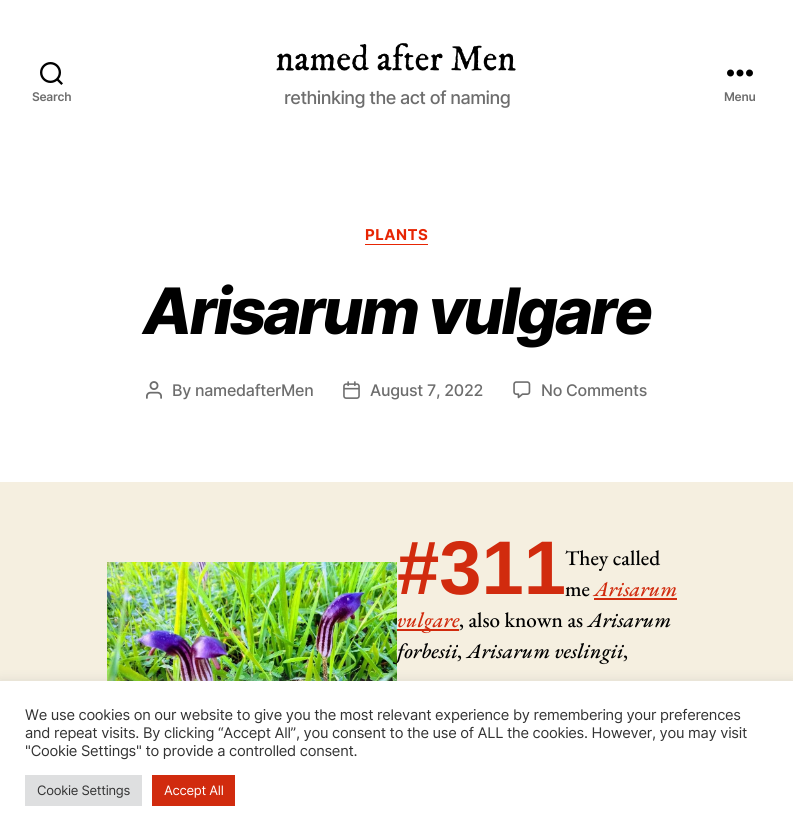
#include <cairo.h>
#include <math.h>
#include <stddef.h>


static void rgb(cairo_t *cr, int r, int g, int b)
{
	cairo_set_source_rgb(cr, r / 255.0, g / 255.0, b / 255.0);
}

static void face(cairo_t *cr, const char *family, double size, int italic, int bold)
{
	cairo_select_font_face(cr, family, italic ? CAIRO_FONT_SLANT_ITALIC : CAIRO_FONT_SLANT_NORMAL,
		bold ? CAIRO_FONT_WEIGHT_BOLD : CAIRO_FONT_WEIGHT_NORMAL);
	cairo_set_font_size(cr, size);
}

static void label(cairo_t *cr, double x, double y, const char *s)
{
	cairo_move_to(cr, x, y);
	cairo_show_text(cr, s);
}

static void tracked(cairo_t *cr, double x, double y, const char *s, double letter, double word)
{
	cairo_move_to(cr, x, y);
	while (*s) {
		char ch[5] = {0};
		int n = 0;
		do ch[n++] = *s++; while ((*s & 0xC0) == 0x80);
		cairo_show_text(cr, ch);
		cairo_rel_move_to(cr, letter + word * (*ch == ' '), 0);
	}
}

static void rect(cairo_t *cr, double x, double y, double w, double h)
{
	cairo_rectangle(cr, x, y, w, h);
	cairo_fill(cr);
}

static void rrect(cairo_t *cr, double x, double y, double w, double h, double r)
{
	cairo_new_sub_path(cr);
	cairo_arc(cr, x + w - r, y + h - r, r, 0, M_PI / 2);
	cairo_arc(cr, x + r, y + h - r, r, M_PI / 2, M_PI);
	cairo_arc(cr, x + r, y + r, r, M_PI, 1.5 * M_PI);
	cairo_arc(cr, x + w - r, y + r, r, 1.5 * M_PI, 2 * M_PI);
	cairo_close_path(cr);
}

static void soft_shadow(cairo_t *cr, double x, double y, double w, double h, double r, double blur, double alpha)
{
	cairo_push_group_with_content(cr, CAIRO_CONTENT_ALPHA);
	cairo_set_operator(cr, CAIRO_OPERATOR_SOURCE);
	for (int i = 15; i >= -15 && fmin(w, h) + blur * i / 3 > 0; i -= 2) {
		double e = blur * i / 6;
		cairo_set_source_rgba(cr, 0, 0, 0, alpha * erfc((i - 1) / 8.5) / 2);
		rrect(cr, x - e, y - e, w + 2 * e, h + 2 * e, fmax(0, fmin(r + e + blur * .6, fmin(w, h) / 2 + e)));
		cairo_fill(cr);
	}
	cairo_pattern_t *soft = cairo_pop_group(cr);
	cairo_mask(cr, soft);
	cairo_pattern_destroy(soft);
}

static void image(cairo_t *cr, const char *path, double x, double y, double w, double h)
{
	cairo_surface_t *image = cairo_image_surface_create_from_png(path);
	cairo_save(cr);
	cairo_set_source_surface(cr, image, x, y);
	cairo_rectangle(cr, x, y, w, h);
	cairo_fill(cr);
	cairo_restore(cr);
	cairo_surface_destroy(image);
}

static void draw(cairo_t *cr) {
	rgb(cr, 245, 239, 224);
	cairo_paint(cr);
	rgb(cr, 255, 255, 255);
	rect(cr, 0, 0, 793, 482);
	image(cr, "image0.png", 40, 62, 23, 23);
	face(cr, "Inter SemiBold", 12, 0, 0);
	rgb(cr, 109, 109, 109);
	tracked(cr, 32, 101, "Search", -0.27, 0);
	image(cr, "image1.png", 276, 43, 240, 28);
	face(cr, "Inter Medium", 18, 0, 0);
	tracked(cr, 284, 104, "rethinking the act of naming", -0.55, 0);
	image(cr, "image2.png", 727, 69, 26, 8);
	face(cr, "Inter SemiBold", 12, 0, 0);
	tracked(cr, 724, 101, "Menu", -0.27, 0);
	rgb(cr, 231, 37, 3);
	rect(cr, 365, 244, 63, 1);
	face(cr, "Inter", 15, 0, 1);
	tracked(cr, 365, 240, "PLANTS", 0.5, 0);
	face(cr, "Inter ExtraBold", 64, 1, 0);
	rgb(cr, 0, 0, 0);
	tracked(cr, 143, 334, "Arisarum vulgare", -2.7, 0);
	image(cr, "image3.png", 146, 381, 16, 18);
	face(cr, "Inter Medium", 16, 0, 0);
	rgb(cr, 109, 109, 109);
	tracked(cr, 172, 396, "By namedafterMen", -0.27, 0);
	image(cr, "image4.png", 343, 381, 17, 18);
	tracked(cr, 370, 396, "August 7, 2022", -0.27, 0);
	image(cr, "image5.png", 513, 381, 18, 18);
	tracked(cr, 541, 396, "No Comments", -0.27, 0);
	image(cr, "image6.png", 107, 562, 290, 119);
	face(cr, "Liberation Sans", 76, 0, 1);
	rgb(cr, 209, 43, 14);
	label(cr, 397, 594, "#311");
	face(cr, "EB Garamond Medium", 21, 0, 0);
	rgb(cr, 0, 0, 0);
	label(cr, 565, 565, "They called");
	label(cr, 565, 596, "me");
	face(cr, "EB Garamond Medium", 21, 1, 0);
	rgb(cr, 209, 43, 14);
	label(cr, 594, 596, "Arisarum");
	rect(cr, 594, 598, 83, 2);
	rect(cr, 397, 629, 62, 2);
	label(cr, 397, 627, "vulgare");
	face(cr, "EB Garamond Medium", 21, 0, 0);
	rgb(cr, 0, 0, 0);
	label(cr, 459, 627, ", also known as");
	face(cr, "EB Garamond Medium", 21, 1, 0);
	label(cr, 588, 627, "Arisarum");
	label(cr, 397, 658, "forbesii");
	face(cr, "EB Garamond Medium", 21, 0, 0);
	label(cr, 457, 658, ",");
	face(cr, "EB Garamond Medium", 21, 1, 0);
	label(cr, 467, 658, "Arisarum veslingii");
	face(cr, "EB Garamond Medium", 21, 0, 0);
	label(cr, 623, 658, ",");
	rgb(cr, 172, 171, 171);
	soft_shadow(cr, 0, 680, 793, 155, 0, 5, 0.3);
	rgb(cr, 255, 255, 255);
	rect(cr, 0, 681, 793, 155);
	face(cr, "Inter", 14.65, 0, 0);
	rgb(cr, 51, 51, 51);
	tracked(cr, 25, 720, "We use cookies on our website to give you the most relevant experience by remembering your preferences", -0.27, 0);
	tracked(cr, 25, 738, "and repeat visits. By clicking “Accept All”, you consent to the use of ALL the cookies. However, you may visit", -0.27, 0);
	tracked(cr, 25, 756, "\"Cookie Settings\" to provide a controlled consent.", -0.27, 0);
	rgb(cr, 222, 223, 224);
	rect(cr, 25, 775, 117, 31);
	face(cr, "Inter", 13, 0, 0);
	rgb(cr, 51, 51, 51);
	tracked(cr, 37, 795, "Cookie Settings", -0.27, 0);
	rgb(cr, 209, 43, 14);
	rect(cr, 152, 775, 83, 31);
	rgb(cr, 255, 255, 255);
	tracked(cr, 164, 795, "Accept All", -0.27, 0);
}

int main(void) {
	cairo_surface_t *surface = cairo_image_surface_create(CAIRO_FORMAT_RGB24, 793, 836);
	cairo_t *cr = cairo_create(surface);
	cairo_font_options_t *options = cairo_font_options_create();
	cairo_font_options_set_hint_metrics(options, CAIRO_HINT_METRICS_OFF);
	cairo_font_options_set_hint_style(options, CAIRO_HINT_STYLE_NONE);
	cairo_set_font_options(cr, options);
	cairo_set_miter_limit(cr, 4);
	draw(cr);
	cairo_surface_write_to_png(surface, "render.png");
	cairo_font_options_destroy(options);
	cairo_destroy(cr);
	cairo_surface_destroy(surface);
	return 0;
}
